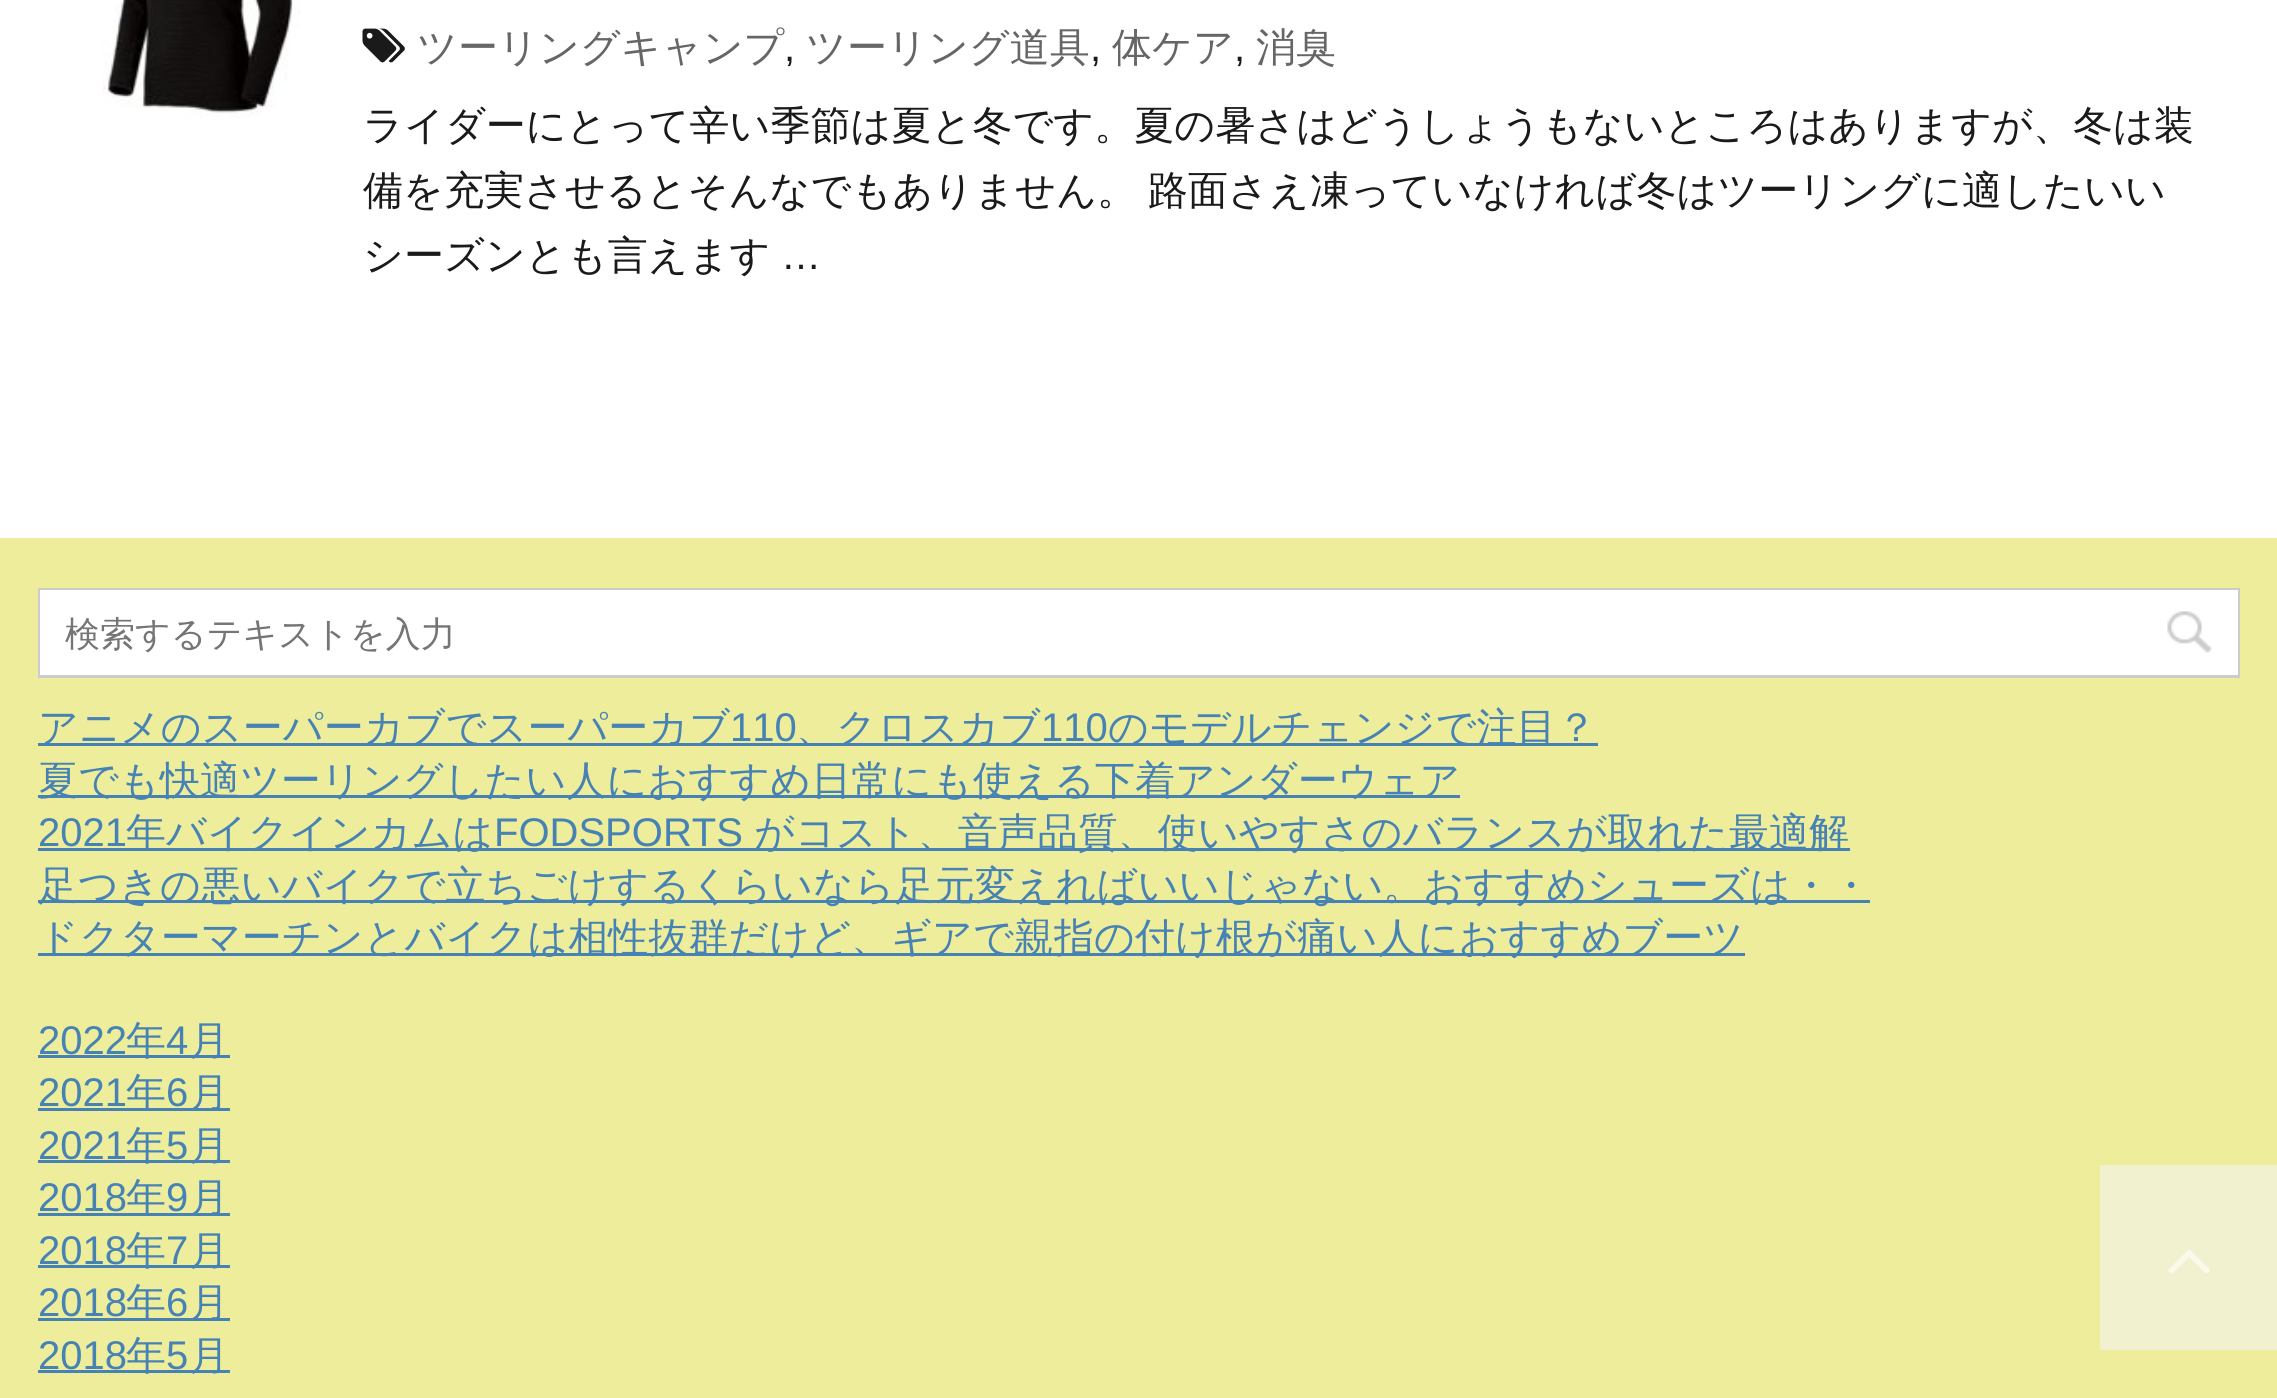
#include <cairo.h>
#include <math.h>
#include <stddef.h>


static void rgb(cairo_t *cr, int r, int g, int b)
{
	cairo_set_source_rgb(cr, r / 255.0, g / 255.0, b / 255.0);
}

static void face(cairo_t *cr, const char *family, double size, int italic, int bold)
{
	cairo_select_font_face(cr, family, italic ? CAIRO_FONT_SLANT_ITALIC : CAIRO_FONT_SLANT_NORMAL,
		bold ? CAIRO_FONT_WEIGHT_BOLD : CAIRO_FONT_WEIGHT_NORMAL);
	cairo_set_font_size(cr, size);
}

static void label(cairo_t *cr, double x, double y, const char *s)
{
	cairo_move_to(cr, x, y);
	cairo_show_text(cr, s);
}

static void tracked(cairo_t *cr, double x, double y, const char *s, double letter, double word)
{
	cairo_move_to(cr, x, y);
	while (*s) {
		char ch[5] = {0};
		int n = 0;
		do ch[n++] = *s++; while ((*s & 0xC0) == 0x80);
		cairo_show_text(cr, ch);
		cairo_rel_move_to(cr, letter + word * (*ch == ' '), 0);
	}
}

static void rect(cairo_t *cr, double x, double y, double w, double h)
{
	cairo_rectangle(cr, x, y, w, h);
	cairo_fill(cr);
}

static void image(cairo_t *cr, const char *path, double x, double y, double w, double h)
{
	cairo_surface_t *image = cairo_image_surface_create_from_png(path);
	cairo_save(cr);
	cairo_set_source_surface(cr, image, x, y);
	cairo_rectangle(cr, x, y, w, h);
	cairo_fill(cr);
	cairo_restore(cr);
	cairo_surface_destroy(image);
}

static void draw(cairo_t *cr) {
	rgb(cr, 237, 237, 156);
	cairo_paint(cr);
	rgb(cr, 255, 255, 255);
	rect(cr, 0, 0, 2277, 538);
	image(cr, "image0.png", 102, 0, 198, 118);
	image(cr, "image1.png", 362, 28, 43, 35);
	face(cr, "WenQuanYi Zen Hei Medium", 40, 0, 0);
	rgb(cr, 102, 102, 102);
	label(cr, 417, 61, "ツーリングキャンプ");
	face(cr, "Liberation Sans", 40, 0, 0);
	rgb(cr, 26, 26, 26);
	label(cr, 784, 61, ",");
	face(cr, "WenQuanYi Zen Hei Medium", 40, 0, 0);
	rgb(cr, 102, 102, 102);
	label(cr, 806, 61, "ツーリング道具");
	face(cr, "Liberation Sans", 40, 0, 0);
	rgb(cr, 26, 26, 26);
	label(cr, 1090, 61, ",");
	face(cr, "WenQuanYi Zen Hei Medium", 40, 0, 0);
	rgb(cr, 102, 102, 102);
	label(cr, 1112, 61, "体ケア");
	face(cr, "Liberation Sans", 40, 0, 0);
	rgb(cr, 26, 26, 26);
	label(cr, 1234, 61, ",");
	face(cr, "WenQuanYi Zen Hei Medium", 40, 0, 0);
	rgb(cr, 102, 102, 102);
	label(cr, 1256, 61, "消臭");
	rgb(cr, 26, 26, 26);
	label(cr, 363, 139, "ライダーにとって辛い季節は夏と冬です。夏の暑さはどうしょうもないところはありますが、冬は装");
	tracked(cr, 363, 204, "備を充実させるとそんなでもありません。 路面さえ凍っていなければ冬はツーリングに適したいい", 0, -1);
	label(cr, 363, 269, "シーズンとも言えます");
	face(cr, "Liberation Sans", 40, 0, 0);
	label(cr, 781, 269, "…");
	cairo_rectangle(cr, 39.5, 589.5, 2199, 87);
	rgb(cr, 204, 204, 204);
	cairo_set_line_width(cr, 3);
	cairo_stroke(cr);
	rgb(cr, 255, 255, 255);
	rect(cr, 40, 590, 2198, 85);
	face(cr, "WenQuanYi Zen Hei Medium", 35, 0, 0);
	rgb(cr, 117, 117, 117);
	label(cr, 65, 646, "検索するテキストを入力");
	image(cr, "image2.png", 2167, 611, 45, 42);
	rgb(cr, 70, 130, 180);
	rect(cr, 38, 743, 1560, 3);
	face(cr, "WenQuanYi Zen Hei Medium", 40, 0, 0);
	label(cr, 38, 741, "アニメのスーパーカブでスーパーカブ");
	face(cr, "Liberation Sans", 40, 0, 0);
	label(cr, 730, 741, "110");
	face(cr, "WenQuanYi Zen Hei Medium", 40, 0, 0);
	label(cr, 796, 741, "、クロスカブ");
	face(cr, "Liberation Sans", 40, 0, 0);
	label(cr, 1041, 741, "110");
	face(cr, "WenQuanYi Zen Hei Medium", 40, 0, 0);
	label(cr, 1108, 741, "のモデルチェンジで注目？");
	rect(cr, 38, 795, 1422, 3);
	label(cr, 38, 794, "夏でも快適ツーリングしたい人におすすめ日常にも使える下着アンダーウェア");
	face(cr, "Liberation Sans", 40, 0, 0);
	label(cr, 38, 846, "2021");
	rect(cr, 38, 848, 1812, 3);
	face(cr, "WenQuanYi Zen Hei Medium", 40, 0, 0);
	label(cr, 126, 846, "年バイクインカムは");
	face(cr, "Liberation Sans", 40, 0, 0);
	label(cr, 494, 846, "FODSPORTS");
	face(cr, "WenQuanYi Zen Hei Medium", 40, 0, 0);
	label(cr, 754, 846, "がコスト、音声品質、使いやすさのバランスが取れた最適解");
	rect(cr, 38, 900, 1832, 3);
	label(cr, 38, 899, "足つきの悪いバイクで立ちごけするくらいなら足元変えればいいじゃない。おすすめシューズは・・");
	rect(cr, 38, 953, 1707, 3);
	label(cr, 38, 951, "ドクターマーチンとバイクは相性抜群だけど、ギアで親指の付け根が痛い人におすすめブーツ");
	face(cr, "Liberation Sans", 40, 0, 0);
	label(cr, 38, 1054, "2022");
	rect(cr, 38, 1055, 192, 3);
	face(cr, "WenQuanYi Zen Hei Medium", 40, 0, 0);
	label(cr, 126, 1054, "年");
	face(cr, "Liberation Sans", 40, 0, 0);
	label(cr, 166, 1054, "4");
	face(cr, "WenQuanYi Zen Hei Medium", 40, 0, 0);
	label(cr, 189, 1054, "月");
	face(cr, "Liberation Sans", 40, 0, 0);
	label(cr, 38, 1106, "2021");
	rect(cr, 38, 1108, 192, 3);
	face(cr, "WenQuanYi Zen Hei Medium", 40, 0, 0);
	label(cr, 126, 1106, "年");
	face(cr, "Liberation Sans", 40, 0, 0);
	label(cr, 166, 1106, "6");
	face(cr, "WenQuanYi Zen Hei Medium", 40, 0, 0);
	label(cr, 189, 1106, "月");
	face(cr, "Liberation Sans", 40, 0, 0);
	label(cr, 38, 1159, "2021");
	rect(cr, 38, 1160, 192, 3);
	face(cr, "WenQuanYi Zen Hei Medium", 40, 0, 0);
	label(cr, 126, 1159, "年");
	face(cr, "Liberation Sans", 40, 0, 0);
	label(cr, 166, 1159, "5");
	face(cr, "WenQuanYi Zen Hei Medium", 40, 0, 0);
	label(cr, 189, 1159, "月");
	face(cr, "Liberation Sans", 40, 0, 0);
	label(cr, 38, 1211, "2018");
	rect(cr, 38, 1213, 192, 3);
	face(cr, "WenQuanYi Zen Hei Medium", 40, 0, 0);
	label(cr, 126, 1211, "年");
	face(cr, "Liberation Sans", 40, 0, 0);
	label(cr, 166, 1211, "9");
	face(cr, "WenQuanYi Zen Hei Medium", 40, 0, 0);
	label(cr, 189, 1211, "月");
	face(cr, "Liberation Sans", 40, 0, 0);
	label(cr, 38, 1264, "2018");
	rect(cr, 38, 1265, 192, 3);
	face(cr, "WenQuanYi Zen Hei Medium", 40, 0, 0);
	label(cr, 126, 1264, "年");
	face(cr, "Liberation Sans", 40, 0, 0);
	label(cr, 166, 1264, "7");
	face(cr, "WenQuanYi Zen Hei Medium", 40, 0, 0);
	label(cr, 189, 1264, "月");
	face(cr, "Liberation Sans", 40, 0, 0);
	label(cr, 38, 1316, "2018");
	rect(cr, 38, 1318, 192, 3);
	face(cr, "WenQuanYi Zen Hei Medium", 40, 0, 0);
	label(cr, 126, 1316, "年");
	face(cr, "Liberation Sans", 40, 0, 0);
	label(cr, 166, 1316, "6");
	face(cr, "WenQuanYi Zen Hei Medium", 40, 0, 0);
	label(cr, 189, 1316, "月");
	face(cr, "Liberation Sans", 40, 0, 0);
	label(cr, 38, 1369, "2018");
	rect(cr, 38, 1370, 192, 3);
	face(cr, "WenQuanYi Zen Hei Medium", 40, 0, 0);
	label(cr, 126, 1369, "年");
	face(cr, "Liberation Sans", 40, 0, 0);
	label(cr, 166, 1369, "5");
	face(cr, "WenQuanYi Zen Hei Medium", 40, 0, 0);
	label(cr, 189, 1369, "月");
	rgb(cr, 241, 241, 208);
	rect(cr, 2100, 1165, 177, 185);
	image(cr, "image3.png", 2168, 1249, 42, 25);
}

int main(void) {
	cairo_surface_t *surface = cairo_image_surface_create(CAIRO_FORMAT_RGB24, 2277, 1398);
	cairo_t *cr = cairo_create(surface);
	cairo_font_options_t *options = cairo_font_options_create();
	cairo_font_options_set_hint_metrics(options, CAIRO_HINT_METRICS_OFF);
	cairo_font_options_set_hint_style(options, CAIRO_HINT_STYLE_NONE);
	cairo_set_font_options(cr, options);
	cairo_set_miter_limit(cr, 4);
	draw(cr);
	cairo_surface_write_to_png(surface, "render.png");
	cairo_font_options_destroy(options);
	cairo_destroy(cr);
	cairo_surface_destroy(surface);
	return 0;
}
